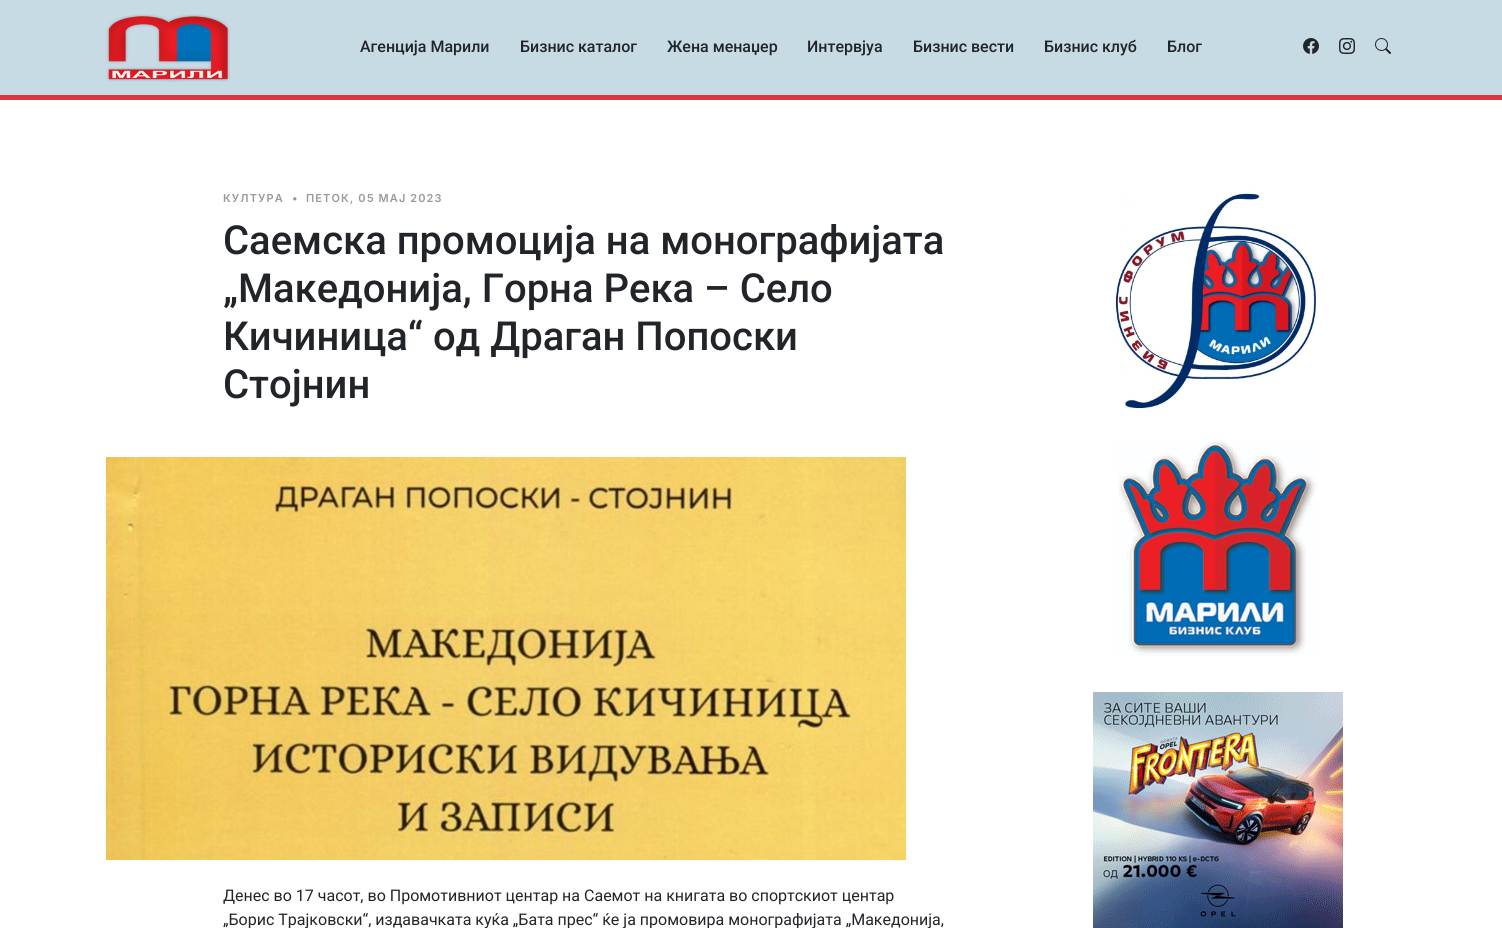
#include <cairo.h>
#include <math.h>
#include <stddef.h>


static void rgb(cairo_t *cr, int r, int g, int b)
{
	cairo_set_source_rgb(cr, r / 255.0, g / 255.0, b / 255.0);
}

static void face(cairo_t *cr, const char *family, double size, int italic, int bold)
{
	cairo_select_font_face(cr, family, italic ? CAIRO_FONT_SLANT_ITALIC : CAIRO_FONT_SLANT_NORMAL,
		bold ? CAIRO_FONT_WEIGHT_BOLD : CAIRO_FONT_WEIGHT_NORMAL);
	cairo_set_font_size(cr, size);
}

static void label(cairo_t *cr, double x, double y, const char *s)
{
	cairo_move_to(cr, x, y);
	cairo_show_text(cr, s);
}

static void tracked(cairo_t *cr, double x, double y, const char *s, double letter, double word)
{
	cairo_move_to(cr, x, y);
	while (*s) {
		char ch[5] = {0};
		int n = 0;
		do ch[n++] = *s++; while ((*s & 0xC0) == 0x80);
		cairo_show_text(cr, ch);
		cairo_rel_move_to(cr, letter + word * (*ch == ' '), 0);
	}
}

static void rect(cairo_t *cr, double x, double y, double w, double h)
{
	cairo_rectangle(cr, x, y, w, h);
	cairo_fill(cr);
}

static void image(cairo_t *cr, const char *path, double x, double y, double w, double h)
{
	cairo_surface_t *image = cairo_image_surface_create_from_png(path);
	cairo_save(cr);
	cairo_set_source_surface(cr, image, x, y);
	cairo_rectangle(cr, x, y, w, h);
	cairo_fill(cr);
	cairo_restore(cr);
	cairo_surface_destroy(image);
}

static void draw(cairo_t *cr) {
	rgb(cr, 255, 255, 255);
	cairo_paint(cr);
	rgb(cr, 199, 219, 229);
	rect(cr, 0, 0, 1502, 95);
	rgb(cr, 220, 53, 69);
	rect(cr, 0, 95, 1502, 5);
	image(cr, "image0.png", 106, 14, 124, 68);
	face(cr, "Roboto Medium", 16, 0, 0);
	rgb(cr, 33, 37, 41);
	label(cr, 360, 52, "Агенција Марили");
	label(cr, 520, 52, "Бизнис каталог");
	label(cr, 667, 52, "Жена менаџер");
	label(cr, 807, 52, "Интервјуа");
	label(cr, 913, 52, "Бизнис вести");
	label(cr, 1044, 52, "Бизнис клуб");
	label(cr, 1167, 52, "Блог");
	image(cr, "image1.png", 1303, 38, 16, 16);
	image(cr, "image2.png", 1339, 38, 16, 16);
	image(cr, "image3.png", 1375, 38, 16, 16);
	face(cr, "Inter SemiBold", 11, 0, 0);
	rgb(cr, 153, 153, 153);
	tracked(cr, 223, 202, "КУЛТУРА", 1.1, 0);
	tracked(cr, 292, 202, "•", 1.1, 0);
	tracked(cr, 306, 202, "ПЕТОК, 05 МАЈ 2023", 1.1, 0);
	face(cr, "Roboto Medium", 40, 0, 0);
	rgb(cr, 33, 37, 41);
	label(cr, 223, 254, "Саемска промоција на монографијата");
	label(cr, 223, 302, "„Македонија, Горна Река – Село");
	label(cr, 223, 350, "Кичиница“ од Драган Попоски");
	label(cr, 223, 398, "Стојнин");
	image(cr, "image4.png", 106, 457, 800, 403);
	face(cr, "Roboto", 16, 0, 0);
	label(cr, 223, 901, "Денес во 17 часот, во Промотивниот центар на Саемот на книгата во спортскиот центар");
	label(cr, 223, 925, "„Борис Трајковски“, издавачката куќа „Бата прес“ ќе ја промовира монографијата „Македонија,");
	image(cr, "image5.png", 1115, 190, 202, 219);
	image(cr, "image6.png", 1118, 439, 200, 217);
	image(cr, "image7.png", 1093, 692, 250, 236);
}

int main(void) {
	cairo_surface_t *surface = cairo_image_surface_create(CAIRO_FORMAT_RGB24, 1502, 928);
	cairo_t *cr = cairo_create(surface);
	cairo_font_options_t *options = cairo_font_options_create();
	cairo_font_options_set_hint_metrics(options, CAIRO_HINT_METRICS_OFF);
	cairo_font_options_set_hint_style(options, CAIRO_HINT_STYLE_NONE);
	cairo_set_font_options(cr, options);
	cairo_set_miter_limit(cr, 4);
	draw(cr);
	cairo_surface_write_to_png(surface, "render.png");
	cairo_font_options_destroy(options);
	cairo_destroy(cr);
	cairo_surface_destroy(surface);
	return 0;
}
